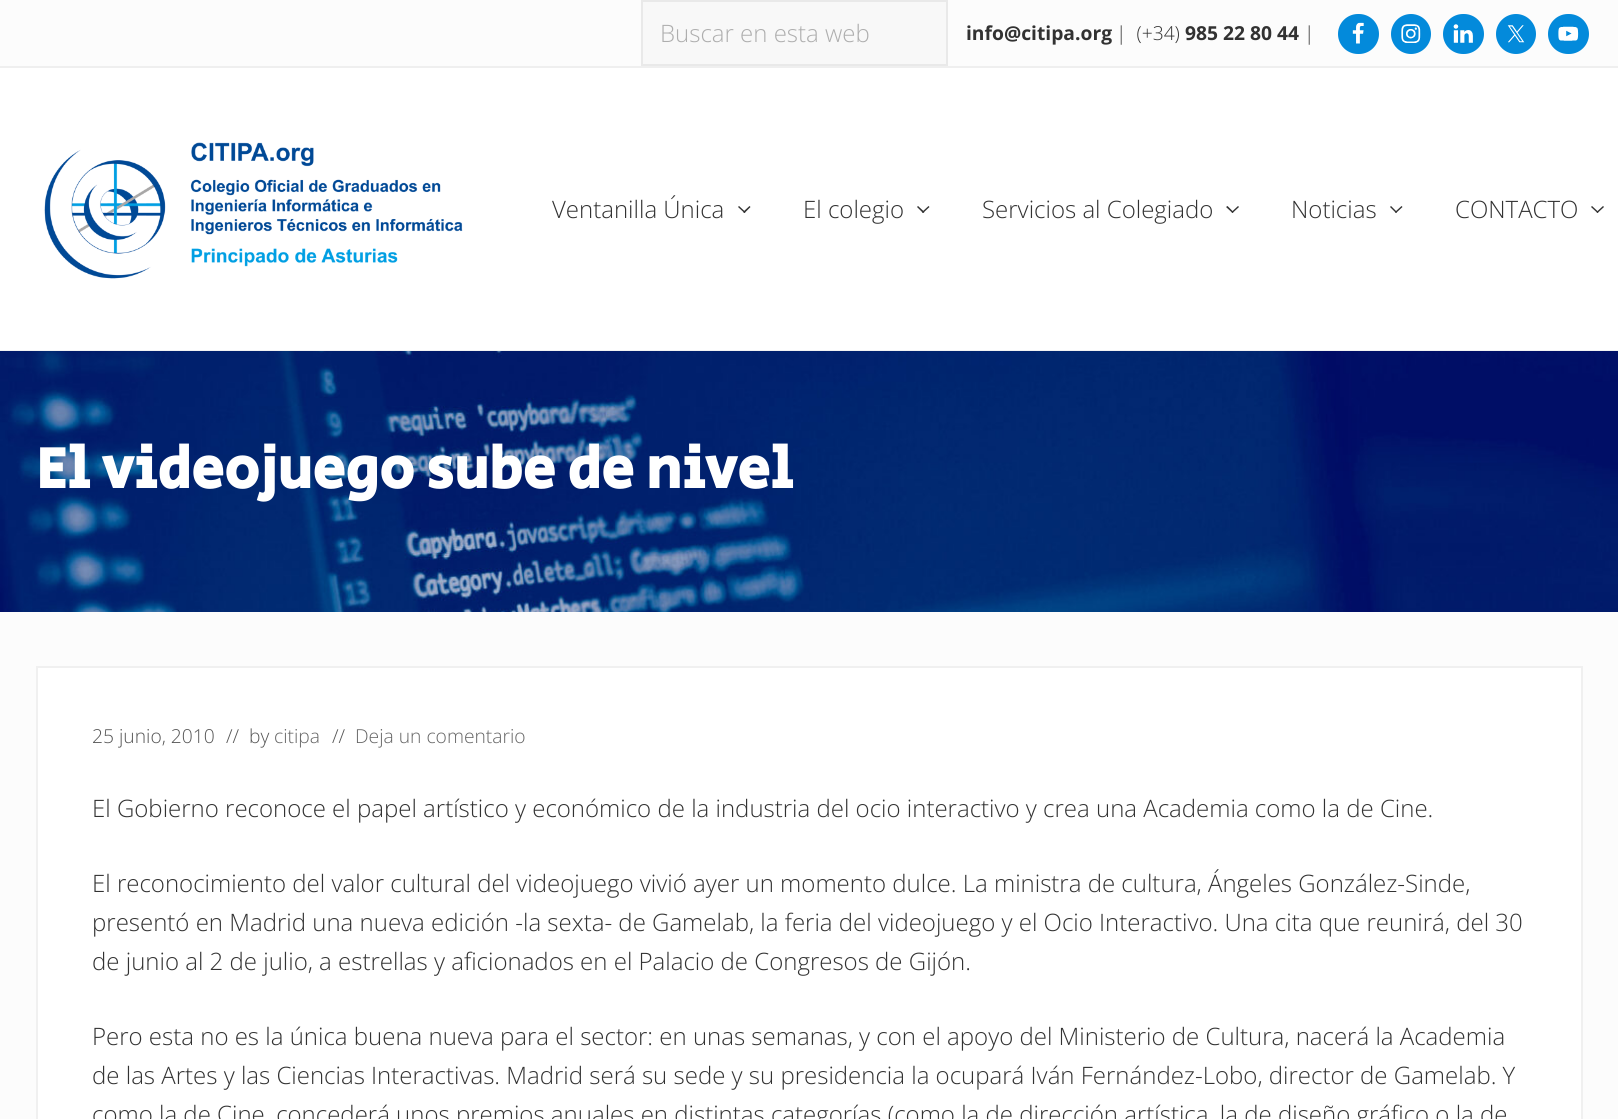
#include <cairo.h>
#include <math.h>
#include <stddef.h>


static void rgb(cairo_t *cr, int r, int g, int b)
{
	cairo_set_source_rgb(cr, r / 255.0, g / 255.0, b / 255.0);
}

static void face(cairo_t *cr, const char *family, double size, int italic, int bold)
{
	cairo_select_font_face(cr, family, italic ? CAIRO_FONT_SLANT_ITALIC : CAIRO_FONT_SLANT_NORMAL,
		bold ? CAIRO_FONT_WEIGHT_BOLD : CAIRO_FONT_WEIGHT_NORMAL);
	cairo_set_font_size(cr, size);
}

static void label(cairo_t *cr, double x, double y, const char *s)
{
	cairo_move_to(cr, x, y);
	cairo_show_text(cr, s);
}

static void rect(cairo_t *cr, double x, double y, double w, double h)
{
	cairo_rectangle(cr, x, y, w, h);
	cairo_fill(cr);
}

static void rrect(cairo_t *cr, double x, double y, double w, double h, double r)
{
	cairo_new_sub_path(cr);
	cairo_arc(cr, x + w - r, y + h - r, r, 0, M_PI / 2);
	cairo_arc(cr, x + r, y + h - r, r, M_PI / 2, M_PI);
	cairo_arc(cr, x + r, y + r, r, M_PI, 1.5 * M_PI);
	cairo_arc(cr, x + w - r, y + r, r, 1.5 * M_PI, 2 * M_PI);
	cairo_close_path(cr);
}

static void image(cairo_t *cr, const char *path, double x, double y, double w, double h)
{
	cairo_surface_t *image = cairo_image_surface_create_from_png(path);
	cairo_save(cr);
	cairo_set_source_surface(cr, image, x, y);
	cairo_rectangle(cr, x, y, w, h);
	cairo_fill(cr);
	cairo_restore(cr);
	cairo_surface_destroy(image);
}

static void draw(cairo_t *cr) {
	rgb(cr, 252, 252, 252);
	cairo_paint(cr);
	rgb(cr, 239, 239, 239);
	rect(cr, 0, 66, 1618, 2);
	rgb(cr, 248, 248, 248);
	cairo_rectangle(cr, 642, 1, 305, 64);
	cairo_fill_preserve(cr);
	rgb(cr, 233, 233, 233);
	cairo_stroke(cr);
	face(cr, "Open Sans Light", 24, 0, 0);
	rgb(cr, 174, 174, 174);
	label(cr, 660, 42, "Buscar en esta web");
	face(cr, "Open Sans", 19.25, 0, 1);
	rgb(cr, 50, 50, 50);
	label(cr, 966, 40, "info@citipa.org");
	face(cr, "Open Sans Light", 19.25, 0, 0);
	label(cr, 1116, 40, "|  (+34)");
	face(cr, "Open Sans", 19.25, 0, 1);
	label(cr, 1185, 40, "985 22 80 44");
	face(cr, "Open Sans Light", 19.25, 0, 0);
	label(cr, 1304, 40, "|");
	rgb(cr, 3, 138, 219);
	rrect(cr, 1338, 14, 41, 40, 20);
	cairo_fill(cr);
	image(cr, "image0.png", 1352, 22, 12, 22);
	cairo_arc(cr, 1411, 34, 20, 0, 2 * M_PI);
	cairo_fill(cr);
	image(cr, "image1.png", 1401, 24, 20, 19);
	rrect(cr, 1443, 14, 41, 40, 20);
	cairo_fill(cr);
	image(cr, "image2.png", 1453, 24, 20, 19);
	cairo_arc(cr, 1516, 34, 20, 0, 2 * M_PI);
	cairo_fill(cr);
	image(cr, "image3.png", 1507, 25, 18, 18);
	rrect(cr, 1548, 14, 41, 40, 20);
	cairo_fill(cr);
	image(cr, "image4.png", 1558, 26, 21, 15);
	rgb(cr, 255, 255, 255);
	rect(cr, 0, 68, 1618, 282);
	rgb(cr, 242, 242, 242);
	rect(cr, 0, 350, 1618, 1);
	image(cr, "image5.png", 44, 142, 419, 137);
	face(cr, "Open Sans Light", 24, 0, 0);
	rgb(cr, 50, 50, 50);
	label(cr, 552, 218, "Ventanilla Única");
	cairo_new_path(cr);
	cairo_move_to(cr, 749.5, 206);
	cairo_line_to(cr, 750.5, 207);
	cairo_line_to(cr, 744.5, 213);
	cairo_line_to(cr, 743, 212);
	cairo_close_path(cr);
	cairo_fill(cr);
	cairo_new_path(cr);
	cairo_move_to(cr, 739, 206);
	cairo_line_to(cr, 745.5, 212);
	cairo_line_to(cr, 744.5, 213);
	cairo_line_to(cr, 738, 207);
	cairo_close_path(cr);
	cairo_fill(cr);
	label(cr, 803, 218, "El colegio");
	cairo_new_path(cr);
	cairo_move_to(cr, 928.5, 206);
	cairo_line_to(cr, 929.5, 207);
	cairo_line_to(cr, 923, 213);
	cairo_line_to(cr, 922, 212);
	cairo_close_path(cr);
	cairo_fill(cr);
	cairo_new_path(cr);
	cairo_move_to(cr, 918, 206);
	cairo_line_to(cr, 924.5, 212);
	cairo_line_to(cr, 923, 213);
	cairo_line_to(cr, 917, 207);
	cairo_close_path(cr);
	cairo_fill(cr);
	label(cr, 982, 218, "Servicios al Colegiado");
	cairo_new_path(cr);
	cairo_move_to(cr, 1238, 206);
	cairo_line_to(cr, 1239, 207);
	cairo_line_to(cr, 1232.5, 213);
	cairo_line_to(cr, 1231.5, 212);
	cairo_close_path(cr);
	cairo_fill(cr);
	cairo_new_path(cr);
	cairo_move_to(cr, 1227.5, 206);
	cairo_line_to(cr, 1233.5, 212);
	cairo_line_to(cr, 1232.5, 213);
	cairo_line_to(cr, 1226, 207);
	cairo_close_path(cr);
	cairo_fill(cr);
	label(cr, 1291, 218, "Noticias");
	cairo_new_path(cr);
	cairo_move_to(cr, 1401.5, 206);
	cairo_line_to(cr, 1402.5, 207);
	cairo_line_to(cr, 1396, 213);
	cairo_line_to(cr, 1395, 212);
	cairo_close_path(cr);
	cairo_fill(cr);
	cairo_new_path(cr);
	cairo_move_to(cr, 1391, 206);
	cairo_line_to(cr, 1397, 212);
	cairo_line_to(cr, 1396, 213);
	cairo_line_to(cr, 1390, 207);
	cairo_close_path(cr);
	cairo_fill(cr);
	label(cr, 1455, 218, "CONTACTO");
	cairo_new_path(cr);
	cairo_move_to(cr, 1603, 206);
	cairo_line_to(cr, 1604, 207);
	cairo_line_to(cr, 1597.5, 213);
	cairo_line_to(cr, 1596.5, 212);
	cairo_close_path(cr);
	cairo_fill(cr);
	cairo_new_path(cr);
	cairo_move_to(cr, 1592, 206);
	cairo_line_to(cr, 1598.5, 212);
	cairo_line_to(cr, 1597.5, 213);
	cairo_line_to(cr, 1591, 207);
	cairo_close_path(cr);
	cairo_fill(cr);
	image(cr, "image6.png", 0, 351, 1618, 261);
	face(cr, "Secular One", 58.6, 0, 1);
	rgb(cr, 255, 255, 255);
	label(cr, 36, 488, "El videojuego sube de nivel");
	cairo_rectangle(cr, 37, 667, 1545, 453);
	cairo_fill_preserve(cr);
	rgb(cr, 240, 240, 240);
	cairo_stroke(cr);
	face(cr, "Open Sans Light", 19.25, 0, 0);
	rgb(cr, 85, 85, 85);
	label(cr, 92, 743, "25 junio, 2010");
	label(cr, 226, 743, "//  by");
	rgb(cr, 102, 102, 102);
	label(cr, 274, 743, "citipa");
	rgb(cr, 85, 85, 85);
	label(cr, 332, 743, "//");
	rgb(cr, 102, 102, 102);
	label(cr, 355, 743, "Deja un comentario");
	face(cr, "Open Sans Light", 24, 0, 0);
	rgb(cr, 50, 50, 50);
	label(cr, 92, 817, "El Gobierno reconoce el papel artístico y económico de la industria del ocio interactivo y crea una Academia como la de Cine.");
	label(cr, 92, 892, "El reconocimiento del valor cultural del videojuego vivió ayer un momento dulce. La ministra de cultura, Ángeles González-Sinde,");
	label(cr, 92, 931, "presentó en Madrid una nueva edición -la sexta- de Gamelab, la feria del videojuego y el Ocio Interactivo. Una cita que reunirá, del 30");
	label(cr, 92, 970, "de junio al 2 de julio, a estrellas y aficionados en el Palacio de Congresos de Gijón.");
	label(cr, 92, 1045, "Pero esta no es la única buena nueva para el sector: en unas semanas, y con el apoyo del Ministerio de Cultura, nacerá la Academia");
	label(cr, 92, 1084, "de las Artes y las Ciencias Interactivas. Madrid será su sede y su presidencia la ocupará Iván Fernández-Lobo, director de Gamelab. Y");
	label(cr, 92, 1123, "como la de Cine, concederá unos premios anuales en distintas categorías (como la de dirección artística, la de diseño gráfico o la de");
}

int main(void) {
	cairo_surface_t *surface = cairo_image_surface_create(CAIRO_FORMAT_RGB24, 1618, 1119);
	cairo_t *cr = cairo_create(surface);
	cairo_font_options_t *options = cairo_font_options_create();
	cairo_font_options_set_hint_metrics(options, CAIRO_HINT_METRICS_OFF);
	cairo_font_options_set_hint_style(options, CAIRO_HINT_STYLE_NONE);
	cairo_set_font_options(cr, options);
	cairo_set_miter_limit(cr, 4);
	draw(cr);
	cairo_surface_write_to_png(surface, "render.png");
	cairo_font_options_destroy(options);
	cairo_destroy(cr);
	cairo_surface_destroy(surface);
	return 0;
}
